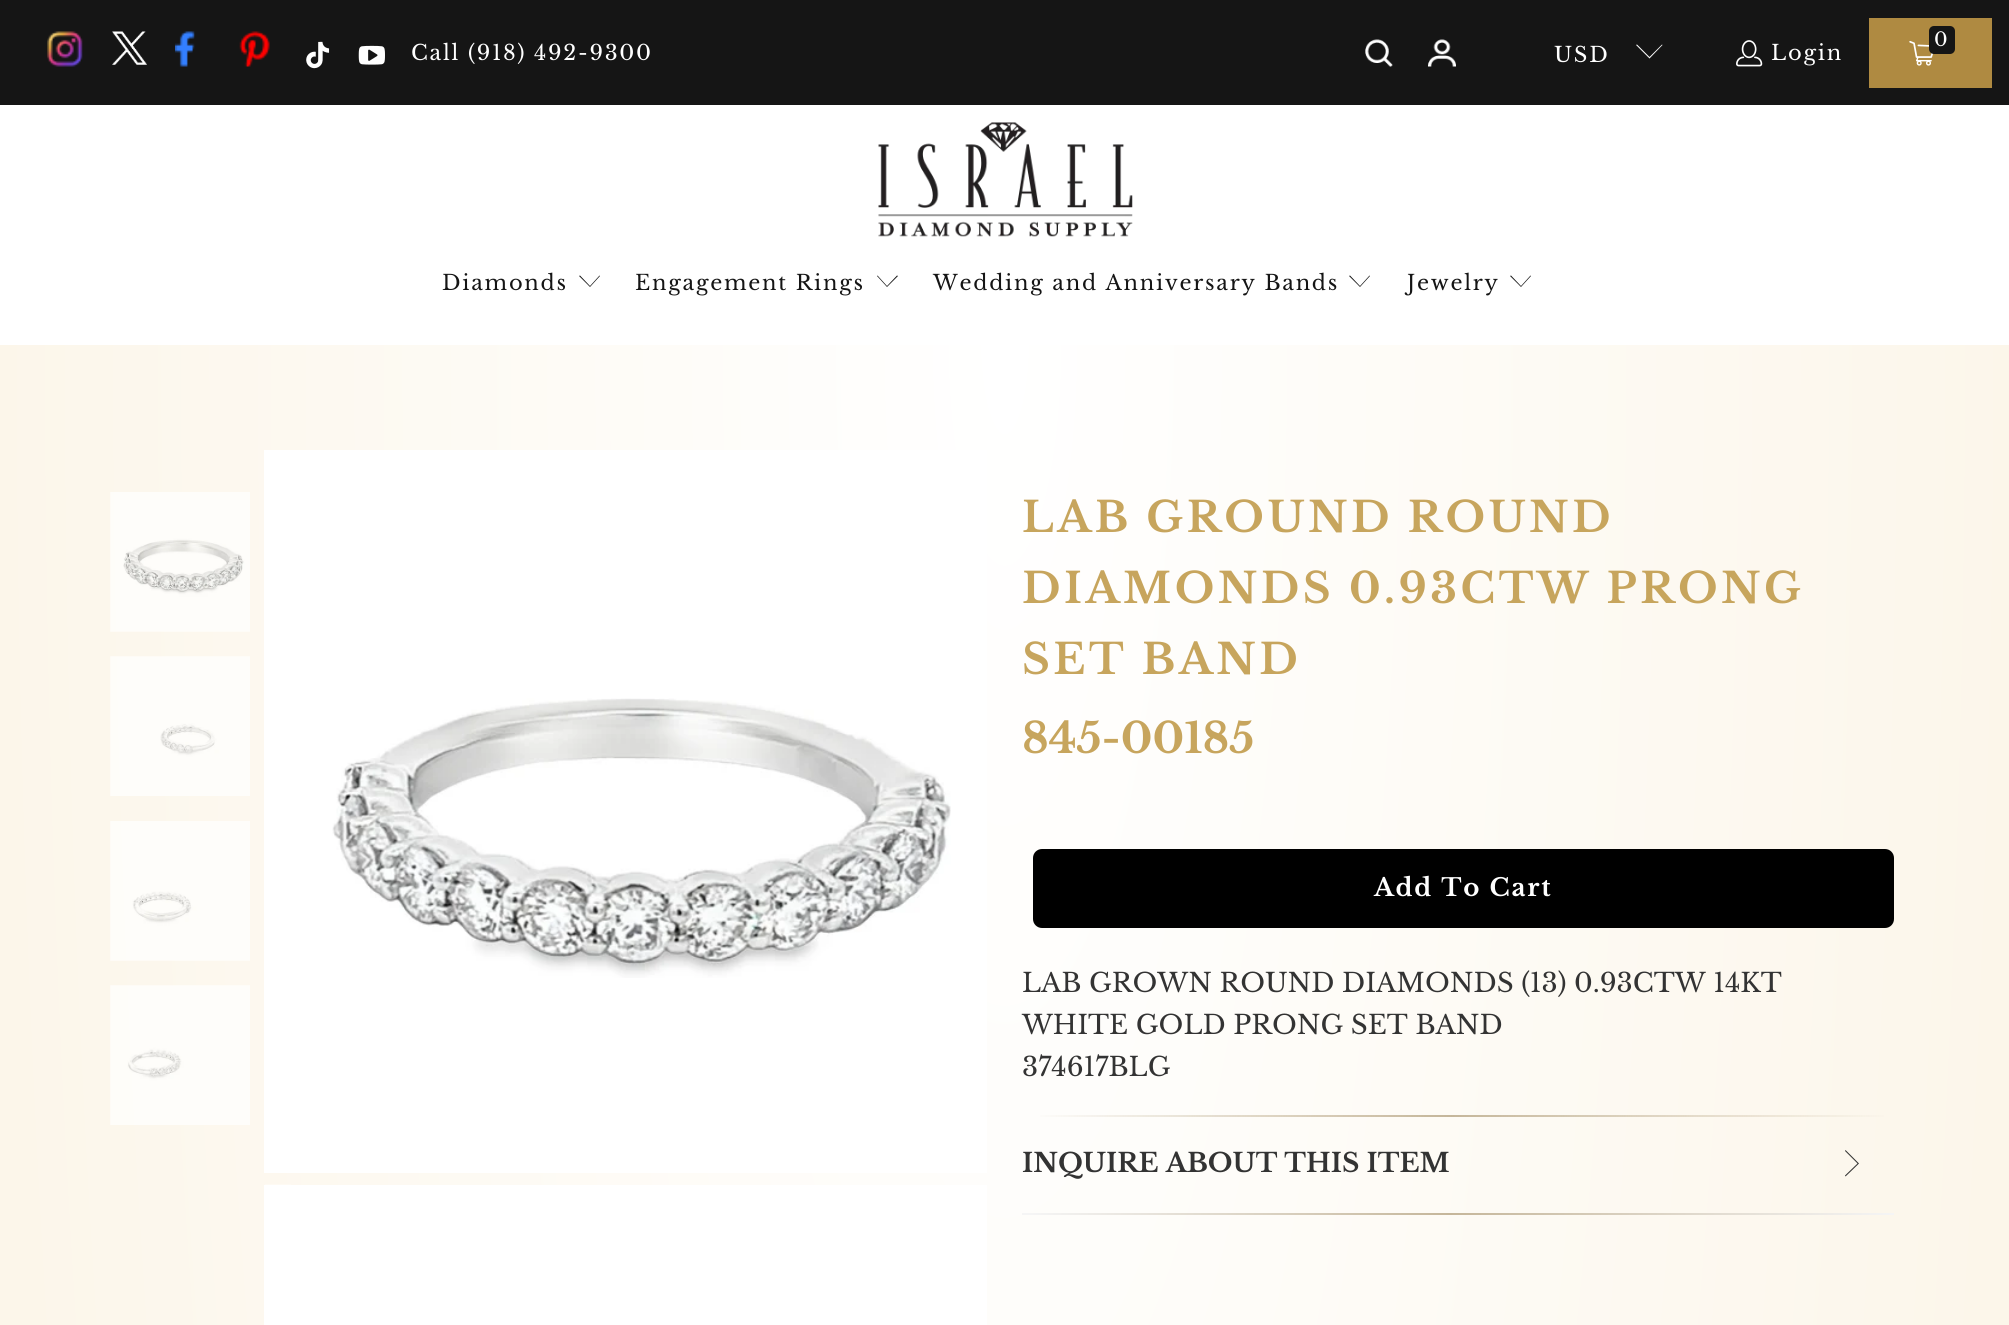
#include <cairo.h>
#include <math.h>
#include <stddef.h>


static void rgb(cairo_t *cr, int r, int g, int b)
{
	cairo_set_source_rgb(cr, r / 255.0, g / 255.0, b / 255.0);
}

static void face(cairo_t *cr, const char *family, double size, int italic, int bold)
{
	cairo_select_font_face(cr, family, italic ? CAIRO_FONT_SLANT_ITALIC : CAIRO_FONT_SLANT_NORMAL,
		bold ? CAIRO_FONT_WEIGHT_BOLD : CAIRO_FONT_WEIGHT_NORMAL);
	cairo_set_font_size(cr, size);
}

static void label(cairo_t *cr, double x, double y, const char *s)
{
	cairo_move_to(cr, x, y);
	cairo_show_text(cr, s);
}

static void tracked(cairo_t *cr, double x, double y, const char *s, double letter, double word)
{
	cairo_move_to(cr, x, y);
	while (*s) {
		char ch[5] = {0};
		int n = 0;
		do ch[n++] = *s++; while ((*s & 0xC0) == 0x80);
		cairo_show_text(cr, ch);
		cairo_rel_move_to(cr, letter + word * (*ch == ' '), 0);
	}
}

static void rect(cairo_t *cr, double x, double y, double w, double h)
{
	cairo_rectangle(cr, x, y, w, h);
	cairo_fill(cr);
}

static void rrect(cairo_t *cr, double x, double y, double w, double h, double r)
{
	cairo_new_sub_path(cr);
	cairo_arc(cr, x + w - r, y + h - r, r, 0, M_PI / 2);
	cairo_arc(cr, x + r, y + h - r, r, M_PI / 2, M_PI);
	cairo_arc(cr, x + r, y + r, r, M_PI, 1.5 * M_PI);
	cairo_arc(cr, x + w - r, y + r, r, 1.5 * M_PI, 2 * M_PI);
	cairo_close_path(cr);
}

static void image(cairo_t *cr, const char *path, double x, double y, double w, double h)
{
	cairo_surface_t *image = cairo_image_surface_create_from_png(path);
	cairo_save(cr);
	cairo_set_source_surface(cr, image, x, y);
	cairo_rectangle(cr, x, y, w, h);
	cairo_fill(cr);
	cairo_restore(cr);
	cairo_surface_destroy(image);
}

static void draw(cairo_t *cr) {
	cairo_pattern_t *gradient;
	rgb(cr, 255, 255, 255);
	cairo_paint(cr);
	rgb(cr, 21, 21, 21);
	rect(cr, 0, 0, 2009, 105);
	image(cr, "image0.png", 47, 31, 36, 36);
	image(cr, "image1.png", 112, 31, 35, 34);
	image(cr, "image2.png", 175, 31, 20, 36);
	image(cr, "image3.png", 239, 31, 31, 36);
	image(cr, "image4.png", 306, 41, 24, 28);
	image(cr, "image5.png", 358, 45, 27, 20);
	face(cr, "Libre Baskerville", 21, 0, 0);
	rgb(cr, 255, 255, 255);
	tracked(cr, 411, 60, "Call (918) 492-9300", 1.75, 0);
	rgb(cr, 175, 138, 65);
	rect(cr, 1869, 18, 123, 70);
	image(cr, "image6.png", 1909, 40, 25, 26);
	rgb(cr, 21, 21, 21);
	rrect(cr, 1929, 26, 26, 28, 5);
	cairo_fill(cr);
	face(cr, "Libre Baskerville", 19, 0, 0);
	rgb(cr, 255, 255, 255);
	tracked(cr, 1934, 46, "0", 1.75, 0);
	image(cr, "image7.png", 1365, 39, 28, 28);
	image(cr, "image8.png", 1428, 39, 28, 28);
	face(cr, "Libre Baskerville", 21, 0, 0);
	tracked(cr, 1554, 62, "USD", 1.75, 0);
	cairo_new_path(cr);
	cairo_move_to(cr, 1649.5, 58.5);
	cairo_line_to(cr, 1636, 45);
	cairo_line_to(cr, 1637, 44.5);
	cairo_line_to(cr, 1649.5, 57);
	cairo_line_to(cr, 1662, 44.5);
	cairo_line_to(cr, 1662.5, 45);
	cairo_close_path(cr);
	cairo_fill(cr);
	image(cr, "image9.png", 1736, 40, 27, 27);
	tracked(cr, 1771, 60, "Login", 1.75, 0);
	image(cr, "image10.png", 878, 122, 255, 115);
	rgb(cr, 21, 21, 21);
	tracked(cr, 442, 290, "Diamonds", 1.75, 0);
	cairo_new_path(cr);
	cairo_move_to(cr, 590, 287);
	cairo_line_to(cr, 579, 276);
	cairo_line_to(cr, 580, 275.5);
	cairo_line_to(cr, 590, 286);
	cairo_line_to(cr, 599.5, 275.5);
	cairo_line_to(cr, 600, 276);
	cairo_close_path(cr);
	cairo_fill(cr);
	tracked(cr, 635, 290, "Engagement Rings", 1.75, 0);
	cairo_new_path(cr);
	cairo_move_to(cr, 887, 287);
	cairo_line_to(cr, 877, 276);
	cairo_line_to(cr, 877.5, 275.5);
	cairo_line_to(cr, 887, 286);
	cairo_line_to(cr, 897, 275.5);
	cairo_line_to(cr, 898, 276);
	cairo_close_path(cr);
	cairo_fill(cr);
	tracked(cr, 933, 290, "Wedding and Anniversary Bands", 1.75, 0);
	cairo_new_path(cr);
	cairo_move_to(cr, 1360, 287);
	cairo_line_to(cr, 1349, 276);
	cairo_line_to(cr, 1350, 275.5);
	cairo_line_to(cr, 1360, 286);
	cairo_line_to(cr, 1369.5, 275.5);
	cairo_line_to(cr, 1370, 276);
	cairo_close_path(cr);
	cairo_fill(cr);
	tracked(cr, 1407, 290, "Jewelry", 1.75, 0);
	cairo_new_path(cr);
	cairo_move_to(cr, 1521, 287);
	cairo_line_to(cr, 1510, 276);
	cairo_line_to(cr, 1511, 275.5);
	cairo_line_to(cr, 1521, 286);
	cairo_line_to(cr, 1530.5, 275.5);
	cairo_line_to(cr, 1531, 276);
	cairo_close_path(cr);
	cairo_fill(cr);
	gradient = cairo_pattern_create_radial(0, 0, 0, 0, 0, 1);
	cairo_pattern_set_matrix(gradient, &(cairo_matrix_t){1.0 / 1005, 0, 0, 1.0 / 4023, -1.0 * 1005 / 1005, -1.0 * 345 / 4023});
	cairo_pattern_add_color_stop_rgba(gradient, 0, 1, 1, 1, 1);
	cairo_pattern_add_color_stop_rgba(gradient, 1, 0.988, 0.965, 0.918, 1);
	cairo_set_source(cr, gradient);
	cairo_pattern_destroy(gradient);
	rect(cr, 0, 345, 2009, 980);
	image(cr, "image11.png", 110, 492, 140, 140);
	image(cr, "image12.png", 110, 656, 140, 140);
	image(cr, "image13.png", 110, 821, 140, 140);
	image(cr, "image14.png", 110, 985, 140, 140);
	rgb(cr, 255, 255, 255);
	rect(cr, 264, 450, 723, 723);
	image(cr, "image15.png", 332, 698, 619, 280);
	rect(cr, 264, 1185, 723, 140);
	rgb(cr, 254, 250, 243);
	rect(cr, 265, 1184, 26, 1);
	face(cr, "Libre Baskerville", 42, 0, 1);
	rgb(cr, 199, 165, 93);
	tracked(cr, 1022, 532, "LAB GROUND ROUND", 3.5, 0);
	tracked(cr, 1022, 603, "DIAMONDS 0.93CTW PRONG", 3.5, 0);
	tracked(cr, 1022, 674, "SET BAND", 3.5, 0);
	label(cr, 1022, 753, "845-00185");
	rgb(cr, 0, 0, 0);
	rrect(cr, 1034, 850, 859, 77, 8);
	cairo_fill_preserve(cr);
	cairo_stroke(cr);
	face(cr, "Libre Baskerville", 24.5, 0, 1);
	rgb(cr, 255, 255, 255);
	tracked(cr, 1374, 896, "Add To Cart", 1.75, 0);
	face(cr, "Libre Baskerville", 26.25, 0, 0);
	rgb(cr, 51, 51, 51);
	label(cr, 1022, 992, "LAB GROWN ROUND DIAMONDS (13) 0.93CTW 14KT");
	label(cr, 1022, 1034, "WHITE GOLD PRONG SET BAND");
	label(cr, 1022, 1076, "374617BLG");
	gradient = cairo_pattern_create_linear(1894, 1116, 1022, 1116);
	cairo_pattern_add_color_stop_rgba(gradient, 0, 0.773, 0.714, 0.604, 0);
	cairo_pattern_add_color_stop_rgba(gradient, 0.51, 0.773, 0.714, 0.604, 1);
	cairo_pattern_add_color_stop_rgba(gradient, 0.99, 0.773, 0.714, 0.604, 0);
	cairo_set_source(cr, gradient);
	cairo_pattern_destroy(gradient);
	rect(cr, 1040, 1115, 844, 2);
	face(cr, "Libre Baskerville", 26.25, 0, 1);
	rgb(cr, 51, 51, 51);
	label(cr, 1022, 1172, "INQUIRE ABOUT THIS ITEM");
	cairo_new_path(cr);
	cairo_move_to(cr, 1859, 1163.5);
	cairo_line_to(cr, 1845.5, 1176.5);
	cairo_line_to(cr, 1845, 1175.5);
	cairo_line_to(cr, 1857.5, 1163.5);
	cairo_line_to(cr, 1845, 1151);
	cairo_line_to(cr, 1845.5, 1150);
	cairo_close_path(cr);
	cairo_fill(cr);
	gradient = cairo_pattern_create_linear(1894, 1214, 1022, 1214);
	cairo_pattern_add_color_stop_rgba(gradient, 0, 0.961, 0.961, 0.961, 1);
	cairo_pattern_add_color_stop_rgba(gradient, 0.51, 0.773, 0.714, 0.604, 1);
	cairo_pattern_add_color_stop_rgba(gradient, 0.99, 0.961, 0.961, 0.961, 1);
	cairo_set_source(cr, gradient);
	cairo_pattern_destroy(gradient);
	rect(cr, 1022, 1213, 872, 2);
}

int main(void) {
	cairo_surface_t *surface = cairo_image_surface_create(CAIRO_FORMAT_RGB24, 2009, 1325);
	cairo_t *cr = cairo_create(surface);
	cairo_font_options_t *options = cairo_font_options_create();
	cairo_font_options_set_hint_metrics(options, CAIRO_HINT_METRICS_OFF);
	cairo_font_options_set_hint_style(options, CAIRO_HINT_STYLE_NONE);
	cairo_set_font_options(cr, options);
	cairo_set_miter_limit(cr, 4);
	draw(cr);
	cairo_surface_write_to_png(surface, "render.png");
	cairo_font_options_destroy(options);
	cairo_destroy(cr);
	cairo_surface_destroy(surface);
	return 0;
}
